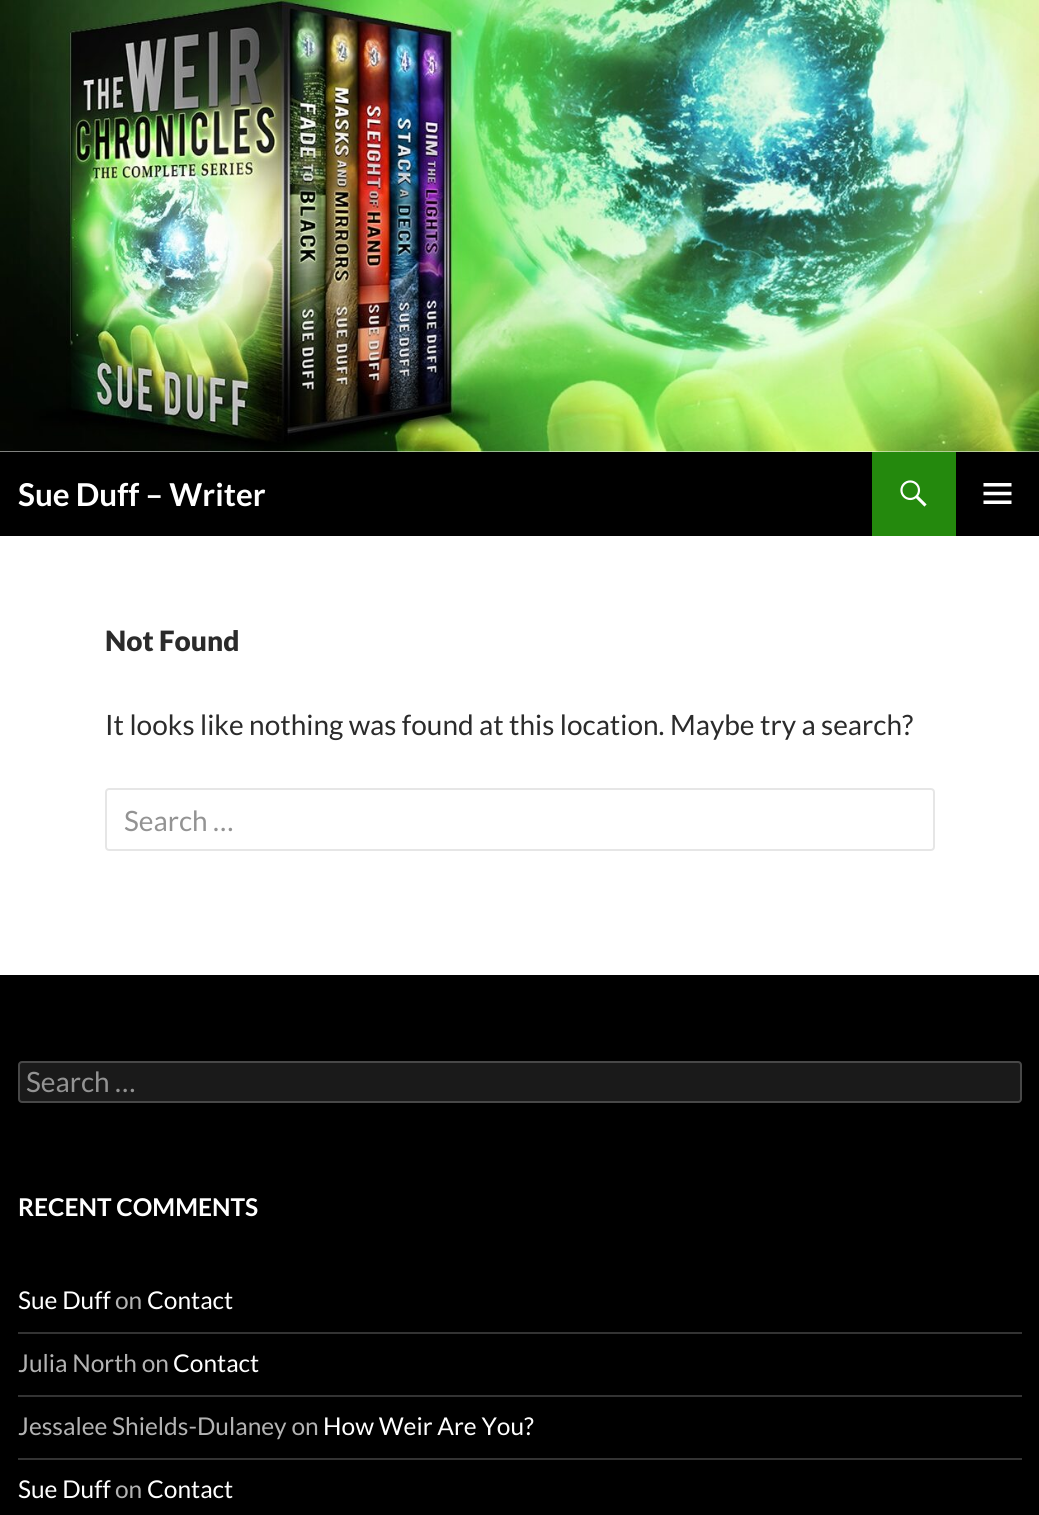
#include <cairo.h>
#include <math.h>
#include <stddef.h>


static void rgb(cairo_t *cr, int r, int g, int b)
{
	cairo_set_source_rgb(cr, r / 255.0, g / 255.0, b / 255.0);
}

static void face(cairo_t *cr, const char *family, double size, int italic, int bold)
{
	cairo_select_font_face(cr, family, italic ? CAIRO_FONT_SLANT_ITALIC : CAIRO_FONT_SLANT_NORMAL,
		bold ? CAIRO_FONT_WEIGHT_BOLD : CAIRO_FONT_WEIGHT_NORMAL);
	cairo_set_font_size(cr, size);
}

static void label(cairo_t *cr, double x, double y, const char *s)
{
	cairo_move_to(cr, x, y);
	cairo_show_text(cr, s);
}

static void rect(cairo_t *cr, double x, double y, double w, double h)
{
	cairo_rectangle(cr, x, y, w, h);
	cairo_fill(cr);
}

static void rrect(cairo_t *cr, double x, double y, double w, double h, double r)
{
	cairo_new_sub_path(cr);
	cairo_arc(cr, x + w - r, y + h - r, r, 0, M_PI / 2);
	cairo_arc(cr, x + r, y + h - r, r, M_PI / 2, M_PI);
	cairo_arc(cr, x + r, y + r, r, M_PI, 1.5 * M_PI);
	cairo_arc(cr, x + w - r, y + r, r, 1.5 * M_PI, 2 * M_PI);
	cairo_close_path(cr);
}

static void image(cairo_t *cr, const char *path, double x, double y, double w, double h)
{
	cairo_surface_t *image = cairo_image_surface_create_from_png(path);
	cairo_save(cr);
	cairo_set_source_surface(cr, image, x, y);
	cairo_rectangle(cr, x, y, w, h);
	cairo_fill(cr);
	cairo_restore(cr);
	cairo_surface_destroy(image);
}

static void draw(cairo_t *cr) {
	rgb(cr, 255, 255, 255);
	cairo_paint(cr);
	image(cr, "image0.png", 0, 0, 1039, 452);
	rgb(cr, 0, 0, 0);
	rect(cr, 0, 452, 1039, 84);
	face(cr, "Lato", 31.5, 0, 1);
	rgb(cr, 255, 255, 255);
	label(cr, 18, 506, "Sue Duff – Writer");
	rgb(cr, 36, 137, 13);
	rect(cr, 872, 452, 84, 84);
	image(cr, "image1.png", 900, 480, 27, 27);
	image(cr, "image2.png", 983, 483, 29, 21);
	face(cr, "Lato Black", 28, 0, 0);
	rgb(cr, 43, 43, 43);
	label(cr, 105, 651, "Not Found");
	face(cr, "Lato", 28, 0, 0);
	label(cr, 105, 735, "It looks like nothing was found at this location. Maybe try a search?");
	rrect(cr, 106, 789, 828, 61, 3);
	rgb(cr, 230, 230, 230);
	cairo_stroke(cr);
	rgb(cr, 147, 147, 147);
	label(cr, 124, 831, "Search …");
	rgb(cr, 0, 0, 0);
	rect(cr, 0, 975, 1039, 540);
	rgb(cr, 26, 26, 26);
	rrect(cr, 18, 1061, 1004, 42, 4);
	cairo_fill(cr);
	rrect(cr, 19, 1062, 1002, 40, 3);
	cairo_set_source_rgba(cr, 1, 1, 1, 0.2);
	cairo_stroke(cr);
	rgb(cr, 147, 147, 147);
	label(cr, 26, 1092, "Search …");
	face(cr, "Lato", 24.5, 0, 1);
	rgb(cr, 255, 255, 255);
	label(cr, 18, 1216, "RECENT COMMENTS");
	face(cr, "Lato", 24.5, 0, 0);
	label(cr, 18, 1309, "Sue Duff");
	rgb(cr, 179, 179, 179);
	label(cr, 115, 1309, "on");
	rgb(cr, 255, 255, 255);
	label(cr, 147, 1309, "Contact");
	rgb(cr, 51, 51, 51);
	rect(cr, 18, 1332, 1004, 2);
	rgb(cr, 179, 179, 179);
	label(cr, 18, 1372, "Julia North on");
	rgb(cr, 255, 255, 255);
	label(cr, 173, 1372, "Contact");
	rgb(cr, 51, 51, 51);
	rect(cr, 18, 1395, 1004, 2);
	rgb(cr, 179, 179, 179);
	label(cr, 18, 1435, "Jessalee Shields-Dulaney on");
	rgb(cr, 255, 255, 255);
	label(cr, 323, 1435, "How Weir Are You?");
	rgb(cr, 51, 51, 51);
	rect(cr, 18, 1458, 1004, 2);
	rgb(cr, 255, 255, 255);
	label(cr, 18, 1498, "Sue Duff");
	rgb(cr, 179, 179, 179);
	label(cr, 115, 1498, "on");
	rgb(cr, 255, 255, 255);
	label(cr, 147, 1498, "Contact");
}

int main(void) {
	cairo_surface_t *surface = cairo_image_surface_create(CAIRO_FORMAT_RGB24, 1039, 1515);
	cairo_t *cr = cairo_create(surface);
	cairo_font_options_t *options = cairo_font_options_create();
	cairo_font_options_set_hint_metrics(options, CAIRO_HINT_METRICS_OFF);
	cairo_font_options_set_hint_style(options, CAIRO_HINT_STYLE_NONE);
	cairo_set_font_options(cr, options);
	cairo_set_miter_limit(cr, 4);
	draw(cr);
	cairo_surface_write_to_png(surface, "render.png");
	cairo_font_options_destroy(options);
	cairo_destroy(cr);
	cairo_surface_destroy(surface);
	return 0;
}
